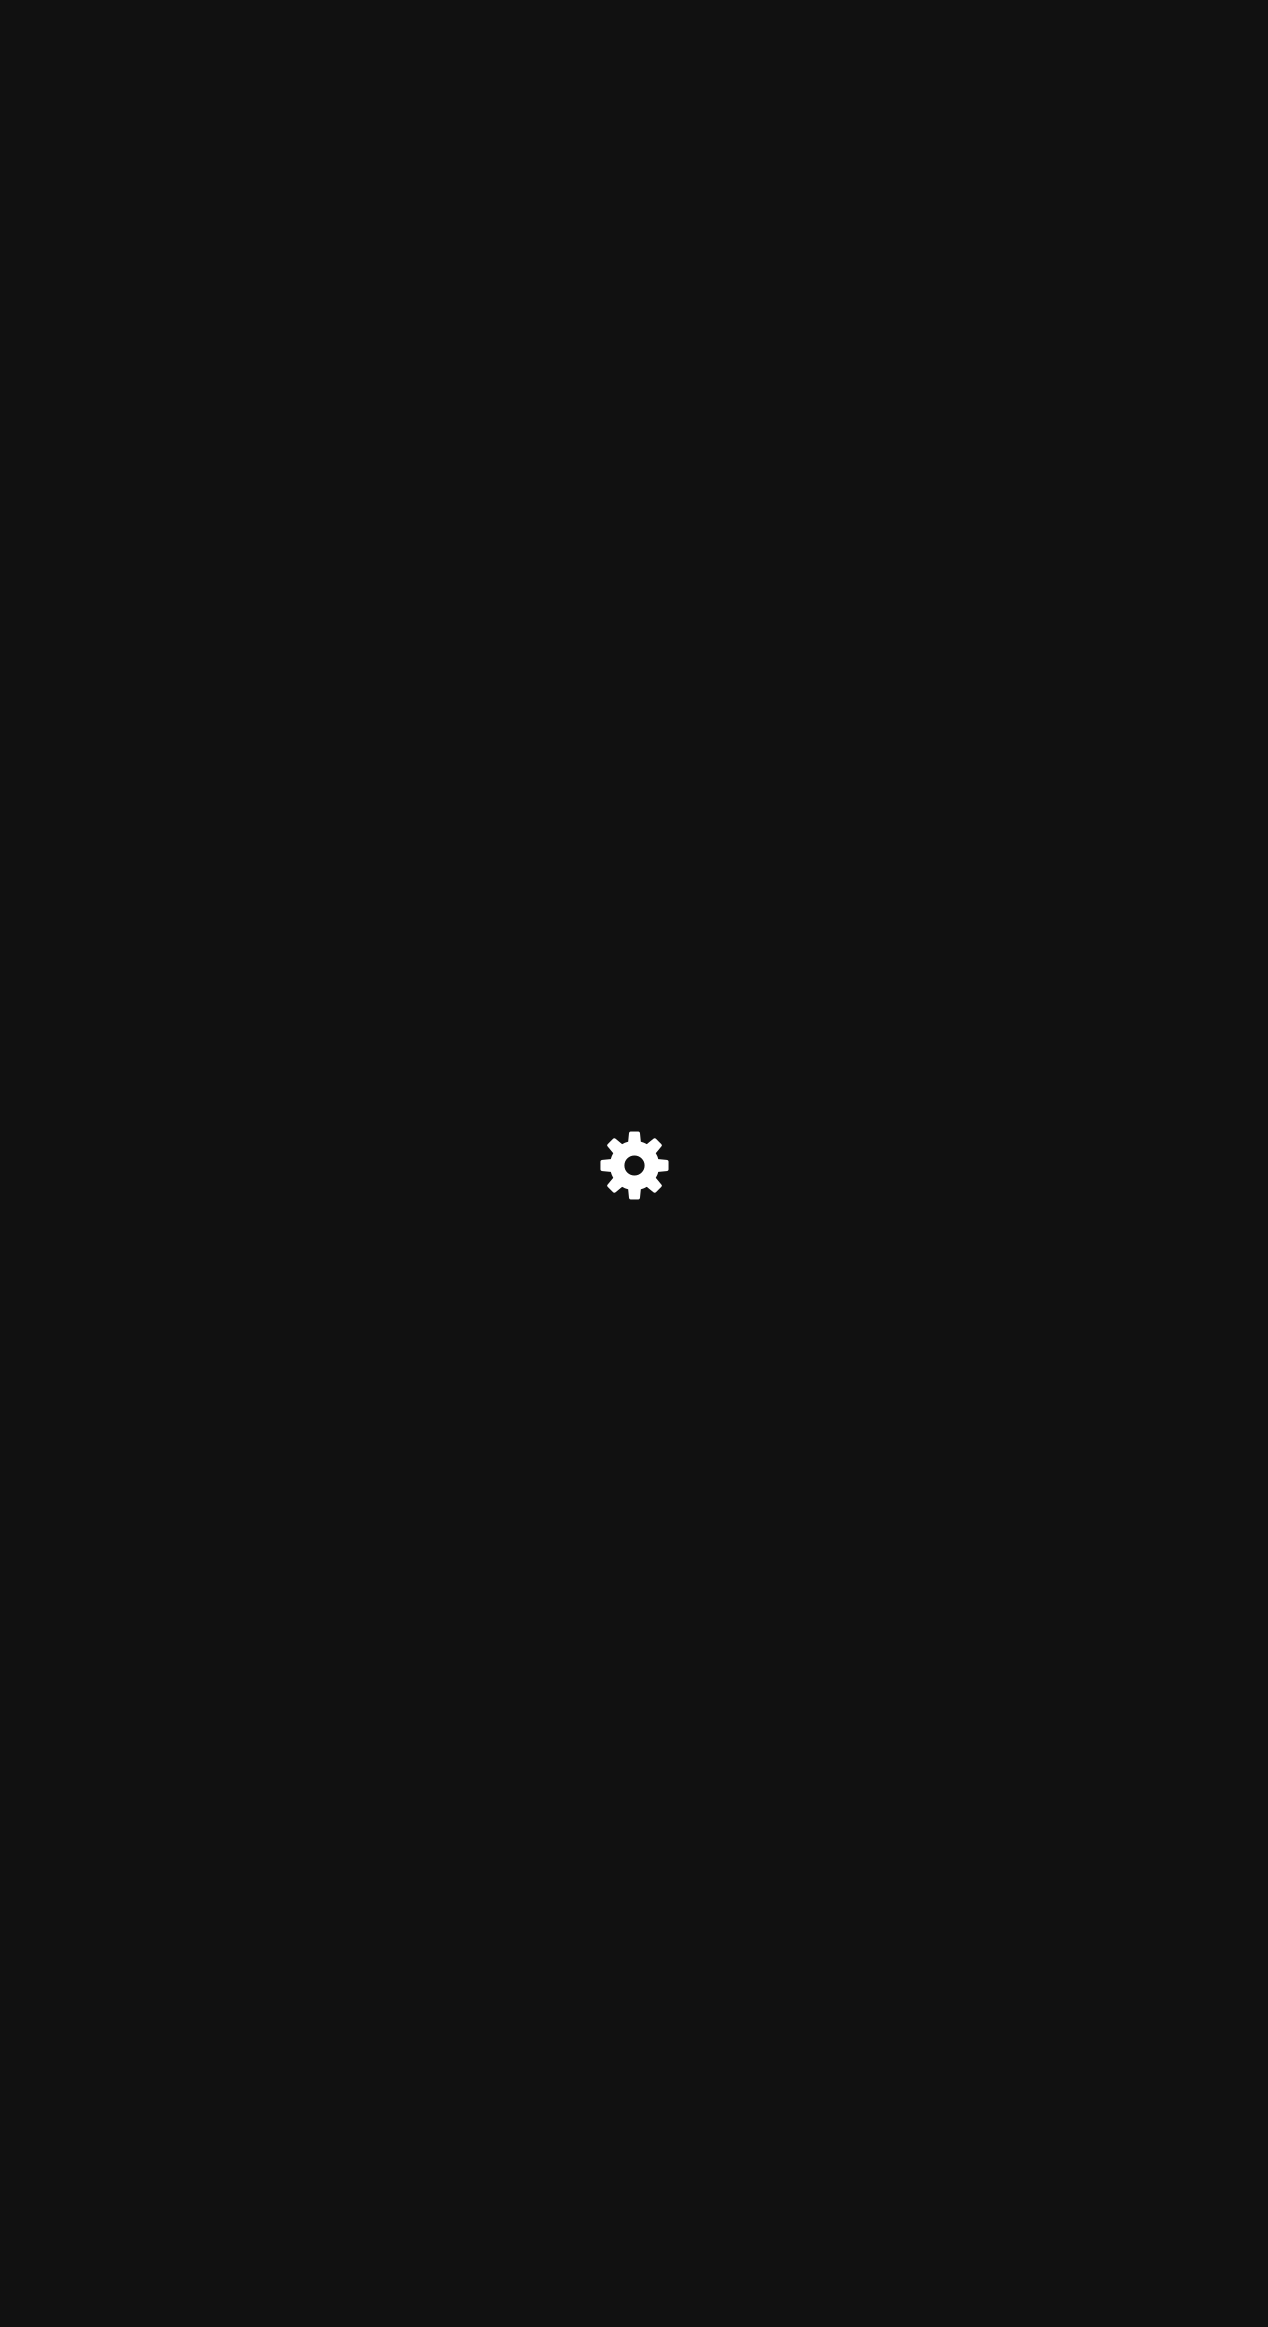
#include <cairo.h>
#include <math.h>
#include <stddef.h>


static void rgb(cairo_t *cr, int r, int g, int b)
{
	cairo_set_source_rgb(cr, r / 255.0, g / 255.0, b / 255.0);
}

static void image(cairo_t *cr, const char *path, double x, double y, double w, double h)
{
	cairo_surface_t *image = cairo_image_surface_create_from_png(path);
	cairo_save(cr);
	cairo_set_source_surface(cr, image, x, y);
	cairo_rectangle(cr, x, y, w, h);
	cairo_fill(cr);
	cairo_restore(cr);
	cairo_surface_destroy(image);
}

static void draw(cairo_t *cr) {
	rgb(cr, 17, 17, 17);
	cairo_paint(cr);
	image(cr, "image0.png", 600, 1131, 69, 69);
}

int main(void) {
	cairo_surface_t *surface = cairo_image_surface_create(CAIRO_FORMAT_RGB24, 1268, 2327);
	cairo_t *cr = cairo_create(surface);
	cairo_font_options_t *options = cairo_font_options_create();
	cairo_font_options_set_hint_metrics(options, CAIRO_HINT_METRICS_OFF);
	cairo_font_options_set_hint_style(options, CAIRO_HINT_STYLE_NONE);
	cairo_set_font_options(cr, options);
	cairo_set_miter_limit(cr, 4);
	draw(cr);
	cairo_surface_write_to_png(surface, "render.png");
	cairo_font_options_destroy(options);
	cairo_destroy(cr);
	cairo_surface_destroy(surface);
	return 0;
}
